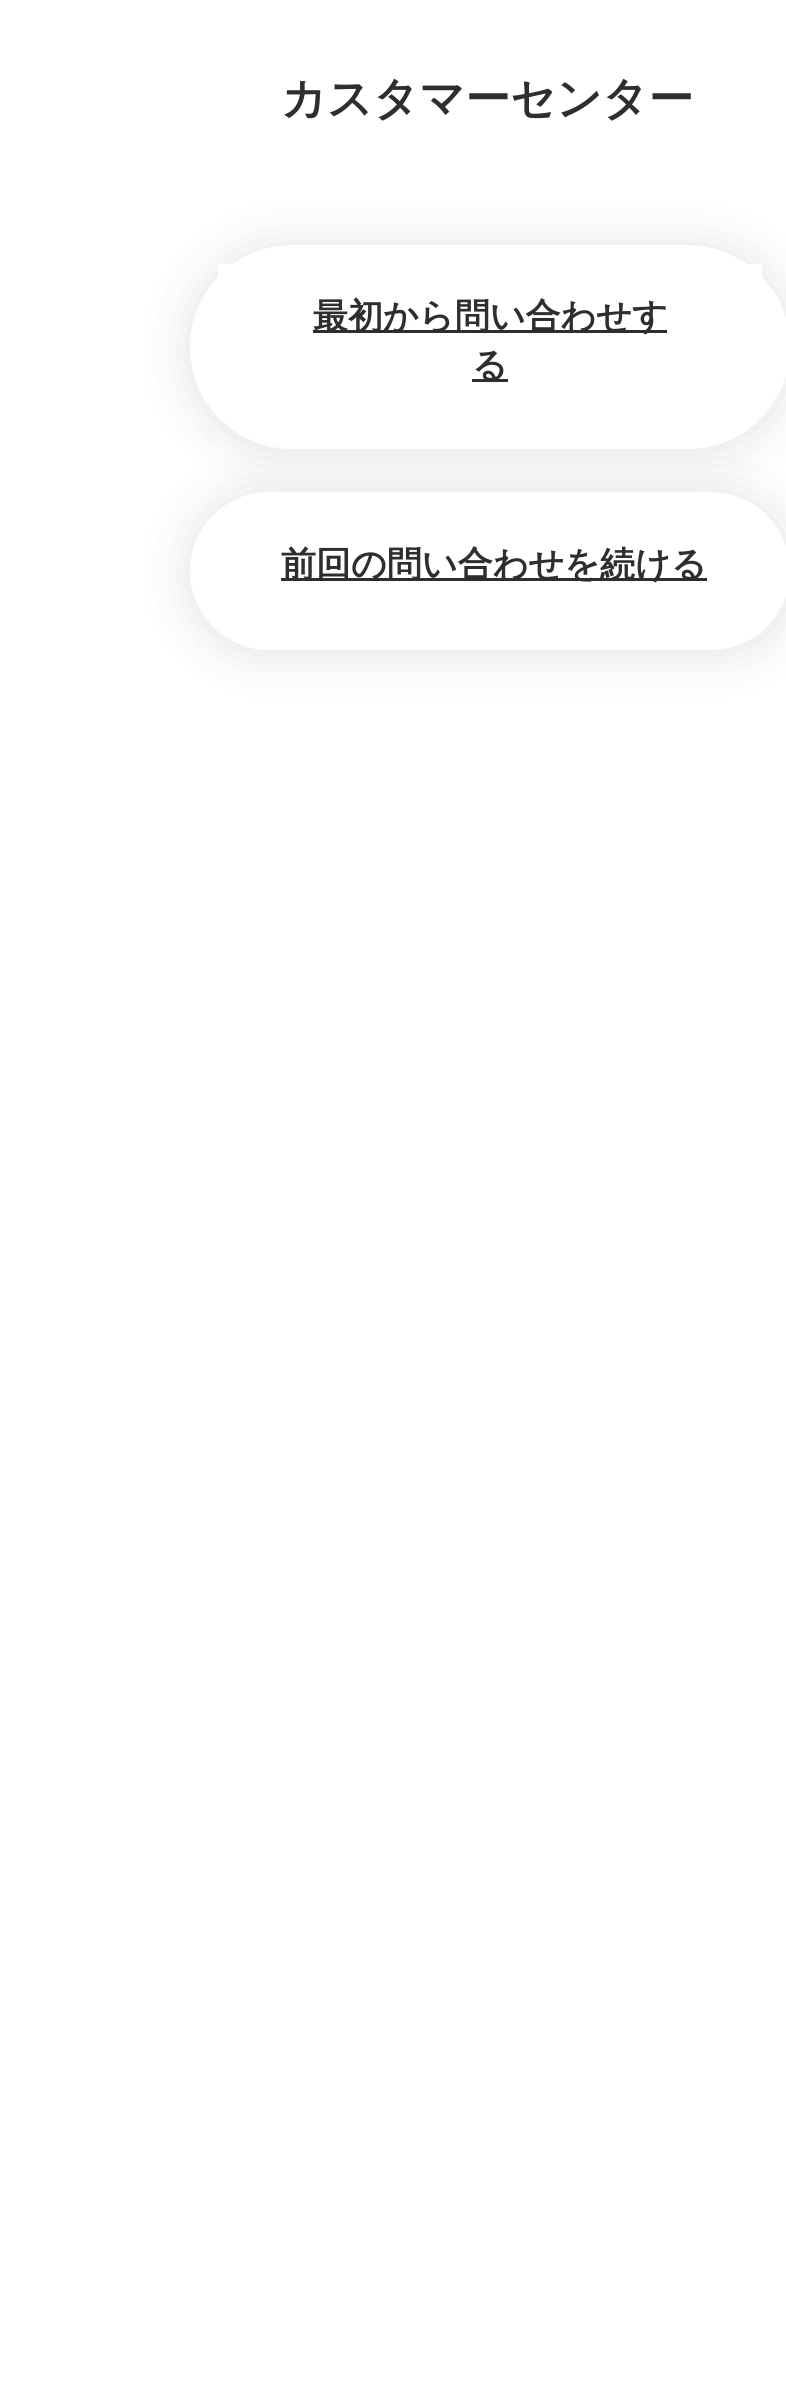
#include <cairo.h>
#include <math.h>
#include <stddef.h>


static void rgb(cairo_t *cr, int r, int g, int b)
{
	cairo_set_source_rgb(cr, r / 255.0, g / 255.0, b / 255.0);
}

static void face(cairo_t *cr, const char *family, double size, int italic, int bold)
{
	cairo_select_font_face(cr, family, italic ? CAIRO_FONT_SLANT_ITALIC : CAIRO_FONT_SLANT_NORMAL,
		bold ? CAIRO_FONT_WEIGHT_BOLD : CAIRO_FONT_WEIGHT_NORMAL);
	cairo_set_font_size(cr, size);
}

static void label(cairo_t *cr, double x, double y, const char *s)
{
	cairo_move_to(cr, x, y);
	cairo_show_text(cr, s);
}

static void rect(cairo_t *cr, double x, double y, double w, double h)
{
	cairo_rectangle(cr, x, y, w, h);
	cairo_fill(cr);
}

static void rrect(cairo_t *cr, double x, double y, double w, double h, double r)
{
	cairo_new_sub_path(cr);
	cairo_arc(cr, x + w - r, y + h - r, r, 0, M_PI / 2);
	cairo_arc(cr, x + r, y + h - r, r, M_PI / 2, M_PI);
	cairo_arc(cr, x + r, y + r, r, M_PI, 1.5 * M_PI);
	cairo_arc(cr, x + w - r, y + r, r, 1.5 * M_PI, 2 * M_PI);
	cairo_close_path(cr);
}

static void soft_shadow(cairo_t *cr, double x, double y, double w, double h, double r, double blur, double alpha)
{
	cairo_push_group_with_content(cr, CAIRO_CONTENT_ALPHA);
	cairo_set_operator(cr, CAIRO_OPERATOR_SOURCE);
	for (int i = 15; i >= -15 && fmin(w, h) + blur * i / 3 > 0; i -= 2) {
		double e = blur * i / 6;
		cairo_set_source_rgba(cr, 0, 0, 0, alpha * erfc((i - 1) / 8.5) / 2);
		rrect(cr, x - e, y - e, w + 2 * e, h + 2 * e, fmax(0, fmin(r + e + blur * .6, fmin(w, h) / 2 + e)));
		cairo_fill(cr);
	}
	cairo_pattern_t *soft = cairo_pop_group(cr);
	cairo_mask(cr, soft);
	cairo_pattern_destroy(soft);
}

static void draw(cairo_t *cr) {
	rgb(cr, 255, 255, 255);
	cairo_paint(cr);
	face(cr, "WenQuanYi Zen Hei", 45, 0, 1);
	rgb(cr, 47, 46, 46);
	label(cr, 281, 114, "カスタマーセンター");
	rgb(cr, 160, 160, 159);
	soft_shadow(cr, 189, 246, 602, 206, 103, 25, 0.3);
	rgb(cr, 255, 255, 255);
	rrect(cr, 190, 245, 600, 204, 102);
	cairo_fill(cr);
	rect(cr, 218, 264, 544, 13);
	rgb(cr, 47, 46, 46);
	rect(cr, 313, 330, 354, 3);
	face(cr, "WenQuanYi Zen Hei", 35, 0, 1);
	label(cr, 313, 328, "最初から問い合わせす");
	rect(cr, 472, 379, 36, 3);
	label(cr, 472, 377, "る");
	rgb(cr, 160, 160, 159);
	soft_shadow(cr, 189, 493, 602, 160, 80, 25, 0.3);
	rgb(cr, 255, 255, 255);
	rrect(cr, 190, 492, 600, 158, 79);
	cairo_fill(cr);
	rect(cr, 218, 509, 544, 2);
	rgb(cr, 47, 46, 46);
	rect(cr, 281, 578, 426, 3);
	label(cr, 281, 576, "前回の問い合わせを続ける");
}

int main(void) {
	cairo_surface_t *surface = cairo_image_surface_create(CAIRO_FORMAT_RGB24, 786, 2397);
	cairo_t *cr = cairo_create(surface);
	cairo_font_options_t *options = cairo_font_options_create();
	cairo_font_options_set_hint_metrics(options, CAIRO_HINT_METRICS_OFF);
	cairo_font_options_set_hint_style(options, CAIRO_HINT_STYLE_NONE);
	cairo_set_font_options(cr, options);
	cairo_set_miter_limit(cr, 4);
	draw(cr);
	cairo_surface_write_to_png(surface, "render.png");
	cairo_font_options_destroy(options);
	cairo_destroy(cr);
	cairo_surface_destroy(surface);
	return 0;
}
